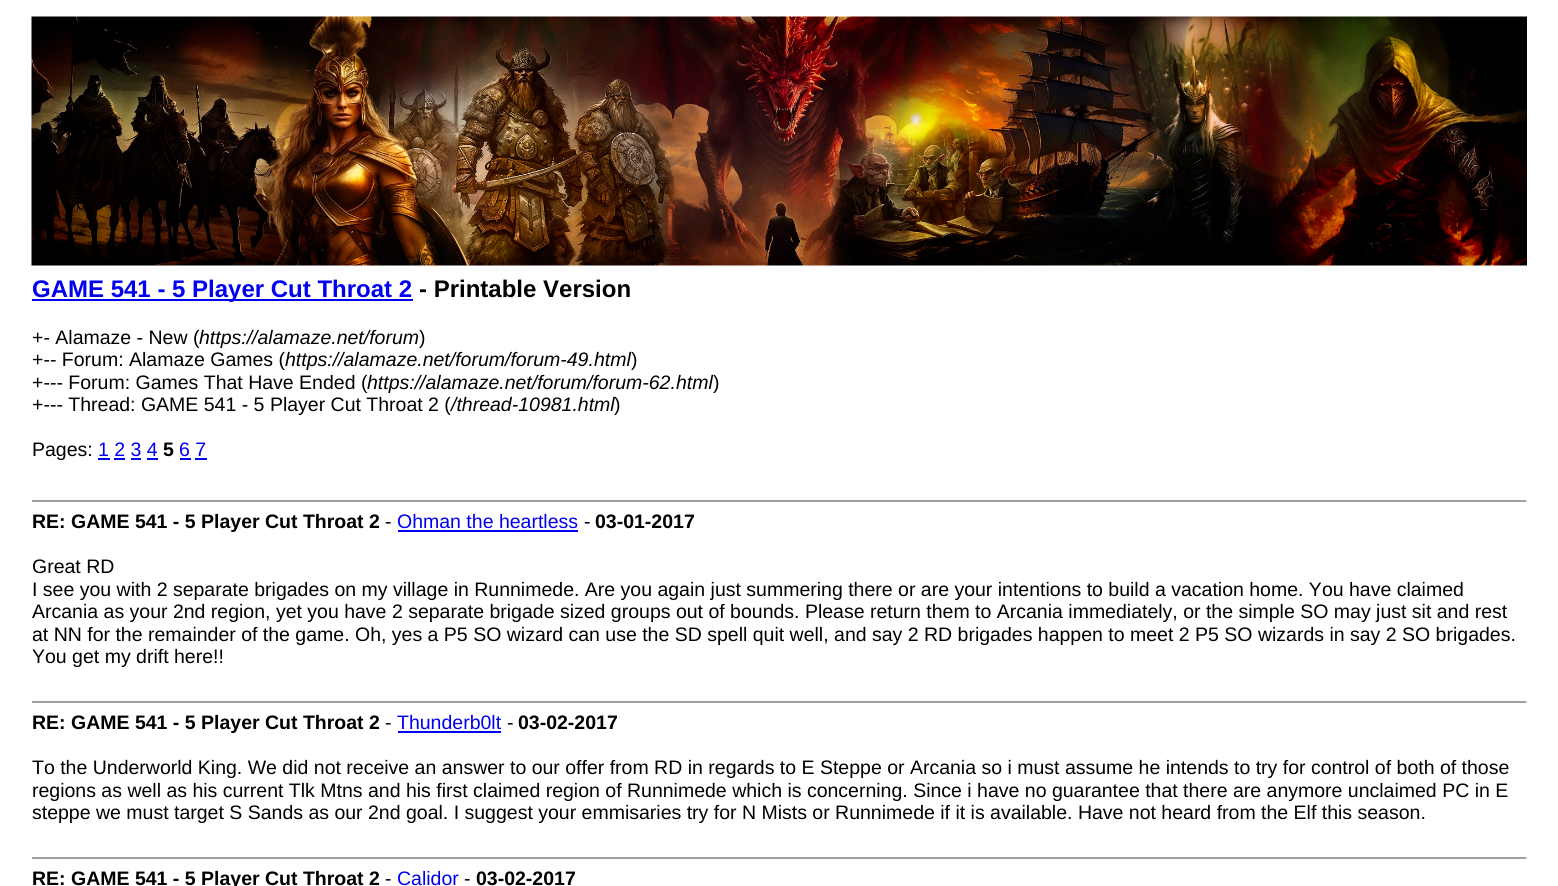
#include <cairo.h>
#include <math.h>
#include <stddef.h>


static void rgb(cairo_t *cr, int r, int g, int b)
{
	cairo_set_source_rgb(cr, r / 255.0, g / 255.0, b / 255.0);
}

static void face(cairo_t *cr, const char *family, double size, int italic, int bold)
{
	cairo_select_font_face(cr, family, italic ? CAIRO_FONT_SLANT_ITALIC : CAIRO_FONT_SLANT_NORMAL,
		bold ? CAIRO_FONT_WEIGHT_BOLD : CAIRO_FONT_WEIGHT_NORMAL);
	cairo_set_font_size(cr, size);
}

static void label(cairo_t *cr, double x, double y, const char *s)
{
	cairo_move_to(cr, x, y);
	cairo_show_text(cr, s);
}

static void rect(cairo_t *cr, double x, double y, double w, double h)
{
	cairo_rectangle(cr, x, y, w, h);
	cairo_fill(cr);
}

static void image(cairo_t *cr, const char *path, double x, double y, double w, double h)
{
	cairo_surface_t *image = cairo_image_surface_create_from_png(path);
	cairo_save(cr);
	cairo_set_source_surface(cr, image, x, y);
	cairo_rectangle(cr, x, y, w, h);
	cairo_fill(cr);
	cairo_restore(cr);
	cairo_surface_destroy(image);
}

static void draw(cairo_t *cr) {
	rgb(cr, 255, 255, 255);
	cairo_paint(cr);
	image(cr, "image0.png", 31, 16, 1496, 250);
	rgb(cr, 0, 0, 238);
	rect(cr, 32, 299, 381, 2);
	face(cr, "Liberation Sans", 24, 0, 1);
	label(cr, 32, 297, "GAME 541 - 5 Player Cut Throat 2");
	rgb(cr, 0, 0, 0);
	label(cr, 419, 297, "- Printable Version");
	face(cr, "Liberation Sans", 19.5, 0, 0);
	label(cr, 32, 344, "+- Alamaze - New (");
	face(cr, "Liberation Sans", 19.5, 1, 0);
	label(cr, 199, 344, "https://alamaze.net/forum");
	face(cr, "Liberation Sans", 19.5, 0, 0);
	label(cr, 419, 344, ")");
	label(cr, 32, 366, "+-- Forum: Alamaze Games (");
	face(cr, "Liberation Sans", 19.5, 1, 0);
	label(cr, 285, 366, "https://alamaze.net/forum/forum-49.html");
	face(cr, "Liberation Sans", 19.5, 0, 0);
	label(cr, 631, 366, ")");
	label(cr, 32, 389, "+--- Forum: Games That Have Ended (");
	face(cr, "Liberation Sans", 19.5, 1, 0);
	label(cr, 367, 389, "https://alamaze.net/forum/forum-62.html");
	face(cr, "Liberation Sans", 19.5, 0, 0);
	label(cr, 713, 389, ")");
	label(cr, 32, 411, "+--- Thread: GAME 541 - 5 Player Cut Throat 2 (");
	face(cr, "Liberation Sans", 19.5, 1, 0);
	label(cr, 451, 411, "/thread-10981.html");
	face(cr, "Liberation Sans", 19.5, 0, 0);
	label(cr, 614, 411, ")");
	label(cr, 32, 456, "Pages:");
	rgb(cr, 0, 0, 238);
	label(cr, 98, 456, "1 2 3 4");
	rect(cr, 98, 458, 12, 2);
	face(cr, "Liberation Sans", 19.5, 0, 1);
	rgb(cr, 0, 0, 0);
	label(cr, 163, 456, "5");
	face(cr, "Liberation Sans", 19.5, 0, 0);
	rgb(cr, 0, 0, 238);
	label(cr, 179, 456, "6 7");
	rect(cr, 180, 458, 11, 2);
	rect(cr, 114, 458, 11, 2);
	rect(cr, 131, 458, 10, 2);
	rect(cr, 147, 458, 11, 2);
	rect(cr, 195, 458, 12, 2);
	rgb(cr, 159, 159, 159);
	rect(cr, 32, 500, 1495, 2);
	rgb(cr, 238, 238, 238);
	rect(cr, 1526, 500, 2, 2);
	face(cr, "Liberation Sans", 19.5, 0, 1);
	rgb(cr, 0, 0, 0);
	label(cr, 32, 528, "RE: GAME 541 - 5 Player Cut Throat 2");
	face(cr, "Liberation Sans", 19.5, 0, 0);
	label(cr, 385, 528, "-");
	rgb(cr, 0, 0, 238);
	label(cr, 397, 528, "Ohman the heartless");
	rect(cr, 398, 530, 180, 2);
	rgb(cr, 0, 0, 0);
	label(cr, 584, 528, "-");
	face(cr, "Liberation Sans", 19.5, 0, 1);
	label(cr, 595, 528, "03-01-2017");
	face(cr, "Liberation Sans", 19.5, 0, 0);
	label(cr, 32, 573, "Great RD");
	label(cr, 32, 596, "I see you with 2 separate brigades on my village in Runnimede. Are you again just summering there or are your intentions to build a vacation home. You have claimed");
	label(cr, 32, 618, "Arcania as your 2nd region, yet you have 2 separate brigade sized groups out of bounds. Please return them to Arcania immediately, or the simple SO may just sit and rest");
	label(cr, 32, 641, "at NN for the remainder of the game. Oh, yes a P5 SO wizard can use the SD spell quit well, and say 2 RD brigades happen to meet 2 P5 SO wizards in say 2 SO brigades.");
	label(cr, 32, 663, "You get my drift here!!");
	rgb(cr, 159, 159, 159);
	rect(cr, 32, 701, 1495, 2);
	rgb(cr, 238, 238, 238);
	rect(cr, 1526, 701, 2, 2);
	face(cr, "Liberation Sans", 19.5, 0, 1);
	rgb(cr, 0, 0, 0);
	label(cr, 32, 729, "RE: GAME 541 - 5 Player Cut Throat 2");
	face(cr, "Liberation Sans", 19.5, 0, 0);
	label(cr, 385, 729, "-");
	rgb(cr, 0, 0, 238);
	label(cr, 397, 729, "Thunderb0lt");
	rect(cr, 398, 731, 103, 2);
	rgb(cr, 0, 0, 0);
	label(cr, 507, 729, "-");
	face(cr, "Liberation Sans", 19.5, 0, 1);
	label(cr, 518, 729, "03-02-2017");
	face(cr, "Liberation Sans", 19.5, 0, 0);
	label(cr, 32, 774, "To the Underworld King. We did not receive an answer to our offer from RD in regards to E Steppe or Arcania so i must assume he intends to try for control of both of those");
	label(cr, 32, 797, "regions as well as his current Tlk Mtns and his first claimed region of Runnimede which is concerning. Since i have no guarantee that there are anymore unclaimed PC in E");
	label(cr, 32, 819, "steppe we must target S Sands as our 2nd goal. I suggest your emmisaries try for N Mists or Runnimede if it is available. Have not heard from the Elf this season.");
	rgb(cr, 159, 159, 159);
	rect(cr, 32, 857, 1495, 2);
	rgb(cr, 238, 238, 238);
	rect(cr, 1526, 857, 2, 2);
	face(cr, "Liberation Sans", 19.5, 0, 1);
	rgb(cr, 0, 0, 0);
	label(cr, 32, 885, "RE: GAME 541 - 5 Player Cut Throat 2");
	face(cr, "Liberation Sans", 19.5, 0, 0);
	label(cr, 385, 885, "-");
	rgb(cr, 0, 0, 238);
	label(cr, 397, 885, "Calidor");
	rgb(cr, 0, 0, 0);
	label(cr, 464, 885, "-");
	face(cr, "Liberation Sans", 19.5, 0, 1);
	label(cr, 476, 885, "03-02-2017");
}

int main(void) {
	cairo_surface_t *surface = cairo_image_surface_create(CAIRO_FORMAT_RGB24, 1558, 886);
	cairo_t *cr = cairo_create(surface);
	cairo_font_options_t *options = cairo_font_options_create();
	cairo_font_options_set_hint_metrics(options, CAIRO_HINT_METRICS_OFF);
	cairo_font_options_set_hint_style(options, CAIRO_HINT_STYLE_NONE);
	cairo_set_font_options(cr, options);
	cairo_set_miter_limit(cr, 4);
	draw(cr);
	cairo_surface_write_to_png(surface, "render.png");
	cairo_font_options_destroy(options);
	cairo_destroy(cr);
	cairo_surface_destroy(surface);
	return 0;
}
